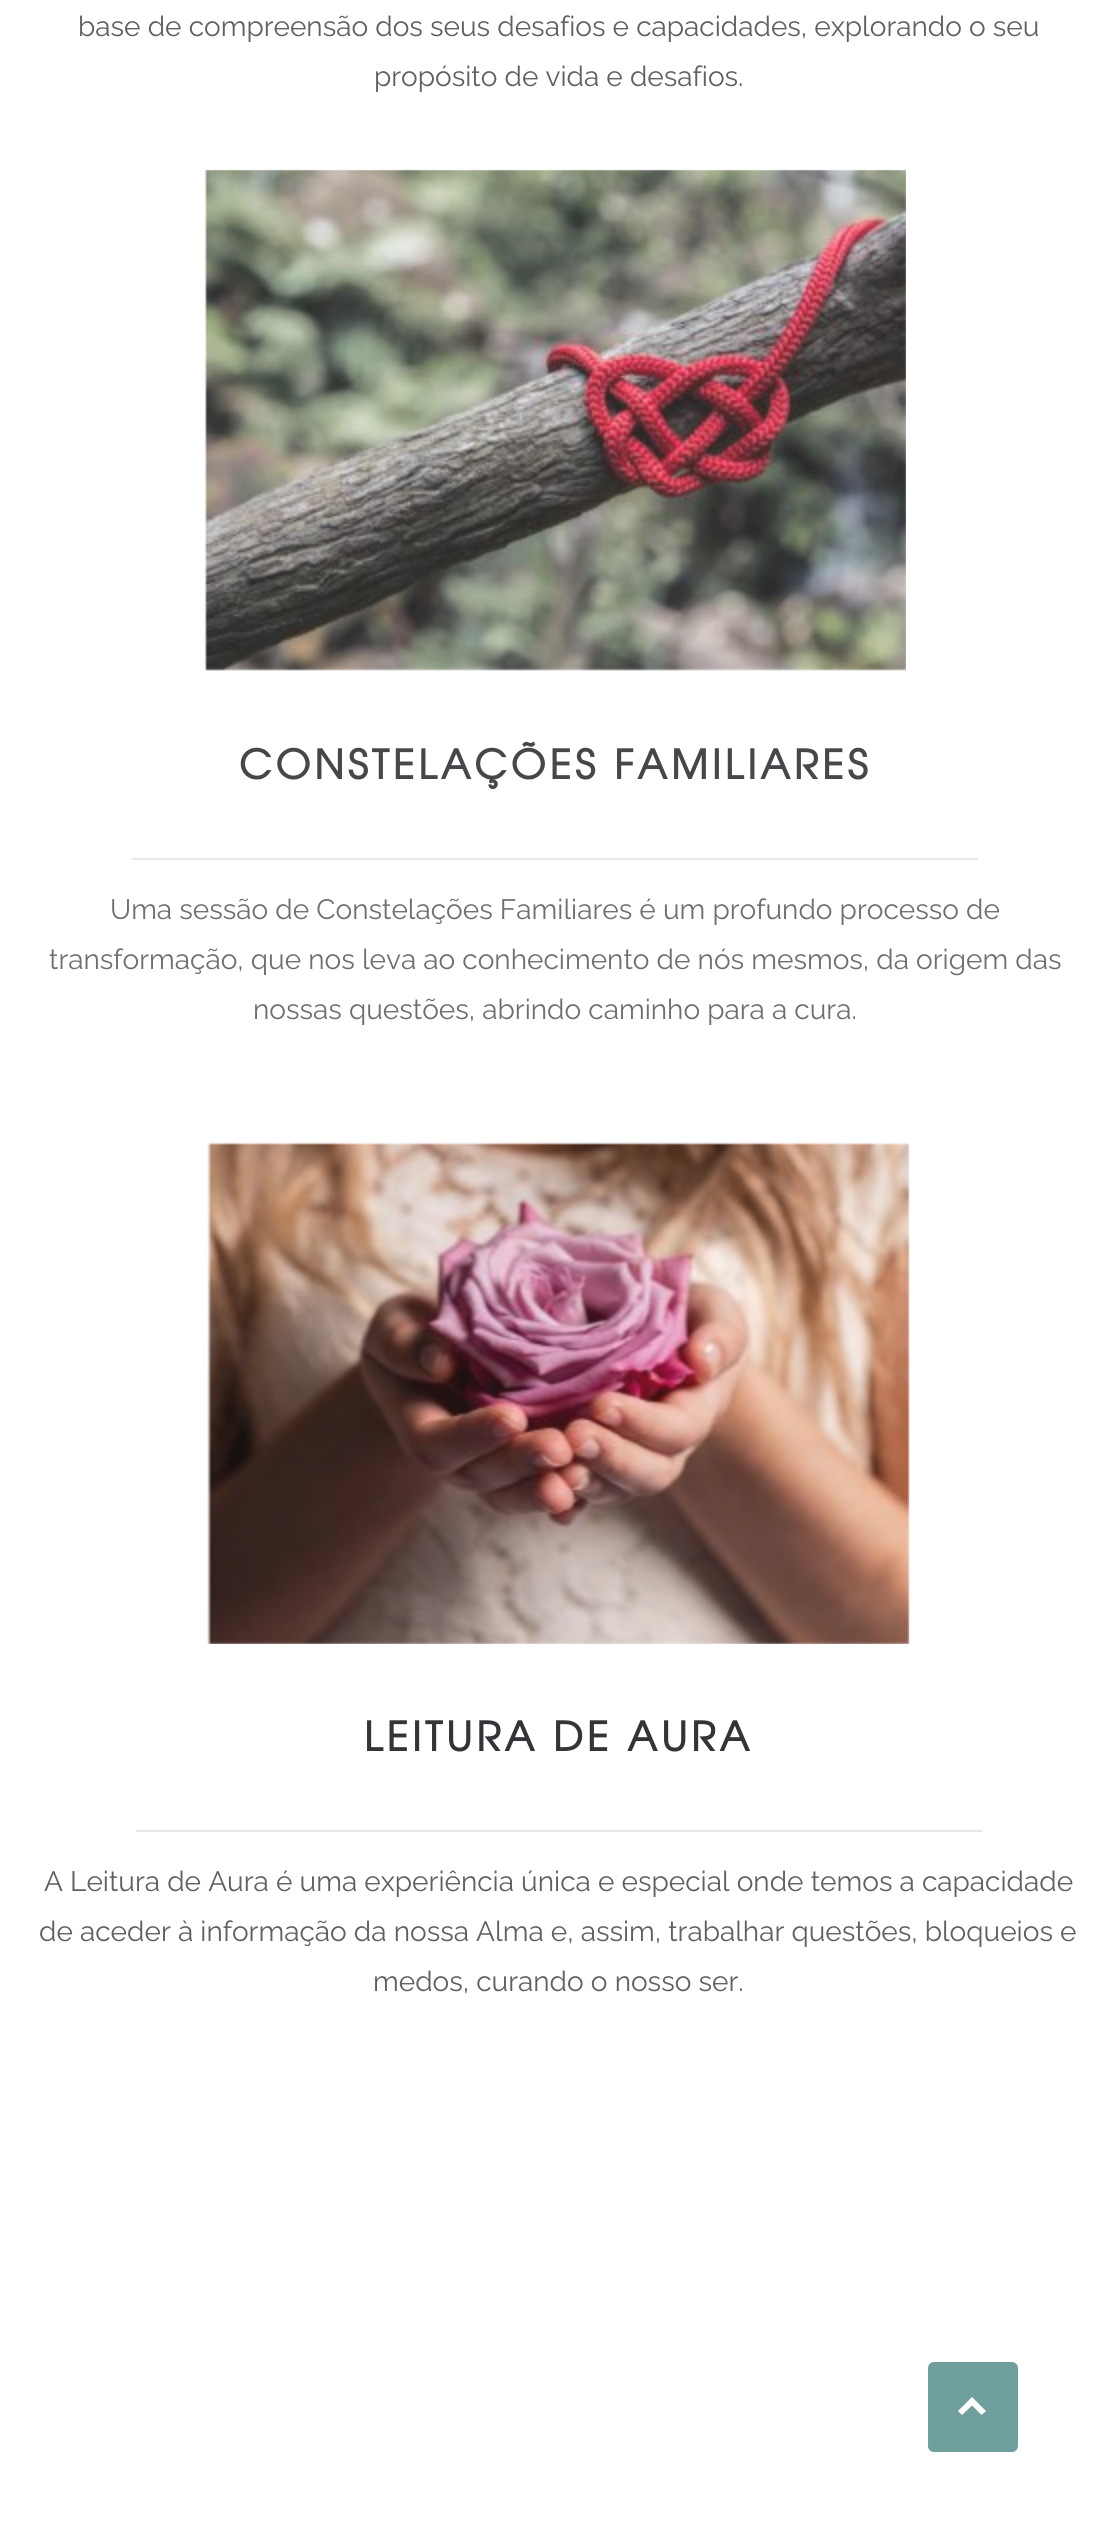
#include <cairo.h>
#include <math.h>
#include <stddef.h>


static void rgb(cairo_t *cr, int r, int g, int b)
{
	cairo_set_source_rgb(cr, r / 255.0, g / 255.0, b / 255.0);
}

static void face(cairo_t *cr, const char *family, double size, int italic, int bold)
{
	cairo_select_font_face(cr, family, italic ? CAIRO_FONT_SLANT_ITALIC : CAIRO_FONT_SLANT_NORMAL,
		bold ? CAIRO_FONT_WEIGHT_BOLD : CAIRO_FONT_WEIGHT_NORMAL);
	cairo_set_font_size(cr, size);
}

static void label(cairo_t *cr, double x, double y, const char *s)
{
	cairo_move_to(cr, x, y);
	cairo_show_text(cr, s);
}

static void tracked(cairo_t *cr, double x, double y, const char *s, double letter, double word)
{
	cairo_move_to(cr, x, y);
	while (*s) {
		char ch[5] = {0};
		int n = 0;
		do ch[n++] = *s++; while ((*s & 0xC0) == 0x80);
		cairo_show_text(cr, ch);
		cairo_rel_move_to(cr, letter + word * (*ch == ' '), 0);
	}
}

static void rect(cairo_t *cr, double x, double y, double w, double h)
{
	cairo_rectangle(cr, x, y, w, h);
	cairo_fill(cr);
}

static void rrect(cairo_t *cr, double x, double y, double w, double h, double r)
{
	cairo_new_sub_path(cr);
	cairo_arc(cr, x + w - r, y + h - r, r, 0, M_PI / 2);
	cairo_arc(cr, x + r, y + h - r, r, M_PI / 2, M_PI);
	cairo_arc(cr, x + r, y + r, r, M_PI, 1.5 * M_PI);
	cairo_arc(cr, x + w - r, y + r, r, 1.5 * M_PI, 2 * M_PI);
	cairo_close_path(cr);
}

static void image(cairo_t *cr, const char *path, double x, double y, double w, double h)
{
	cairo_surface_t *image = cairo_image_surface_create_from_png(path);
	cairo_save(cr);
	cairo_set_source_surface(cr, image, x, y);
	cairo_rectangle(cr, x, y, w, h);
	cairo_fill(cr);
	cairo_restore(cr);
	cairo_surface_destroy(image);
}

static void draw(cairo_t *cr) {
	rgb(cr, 255, 255, 255);
	cairo_paint(cr);
	face(cr, "Raleway", 28, 0, 0);
	rgb(cr, 96, 96, 96);
	label(cr, 78, 36, "base de compreensão dos seus desafios e capacidades, explorando o seu");
	label(cr, 374, 86, "propósito de vida e desafios.");
	image(cr, "image0.png", 204, 169, 702, 502);
	face(cr, "TeX Gyre Adventor", 40, 0, 1);
	rgb(cr, 72, 70, 74);
	tracked(cr, 239, 779, "CONSTELAÇÕES FAMILIARES", 4, 0);
	rgb(cr, 233, 233, 233);
	rect(cr, 132, 858, 846, 2);
	face(cr, "Raleway", 28, 0, 0);
	rgb(cr, 111, 111, 111);
	label(cr, 110, 919, "Uma sessão de Constelações Familiares é um profundo processo de");
	label(cr, 49, 969, "transformação, que nos leva ao conhecimento de nós mesmos, da origem das");
	label(cr, 253, 1019, "nossas questões, abrindo caminho para a cura.");
	image(cr, "image1.png", 207, 1142, 703, 502);
	face(cr, "TeX Gyre Adventor", 40, 0, 1);
	rgb(cr, 53, 51, 56);
	tracked(cr, 364, 1751, "LEITURA DE AURA", 4, 0);
	rgb(cr, 231, 231, 231);
	rect(cr, 136, 1830, 846, 2);
	face(cr, "Raleway", 28, 0, 0);
	rgb(cr, 96, 96, 96);
	label(cr, 44, 1891, "A Leitura de Aura é uma experiência única e especial onde temos a capacidade");
	label(cr, 39, 1941, "de aceder à informação da nossa Alma e, assim, trabalhar questões, bloqueios e");
	label(cr, 373, 1991, "medos, curando o nosso ser.");
	rgb(cr, 110, 159, 156);
	rrect(cr, 928, 2362, 90, 90, 6);
	cairo_fill(cr);
	rgb(cr, 255, 255, 255);
	cairo_new_path(cr);
	cairo_move_to(cr, 958, 2411);
	cairo_line_to(cr, 972, 2397);
	cairo_line_to(cr, 986, 2411);
	cairo_line_to(cr, 981.5, 2415);
	cairo_line_to(cr, 972, 2405.5);
	cairo_line_to(cr, 962, 2415);
	cairo_close_path(cr);
	cairo_fill(cr);
}

int main(void) {
	cairo_surface_t *surface = cairo_image_surface_create(CAIRO_FORMAT_RGB24, 1098, 2531);
	cairo_t *cr = cairo_create(surface);
	cairo_font_options_t *options = cairo_font_options_create();
	cairo_font_options_set_hint_metrics(options, CAIRO_HINT_METRICS_OFF);
	cairo_font_options_set_hint_style(options, CAIRO_HINT_STYLE_NONE);
	cairo_set_font_options(cr, options);
	cairo_set_miter_limit(cr, 4);
	draw(cr);
	cairo_surface_write_to_png(surface, "render.png");
	cairo_font_options_destroy(options);
	cairo_destroy(cr);
	cairo_surface_destroy(surface);
	return 0;
}
